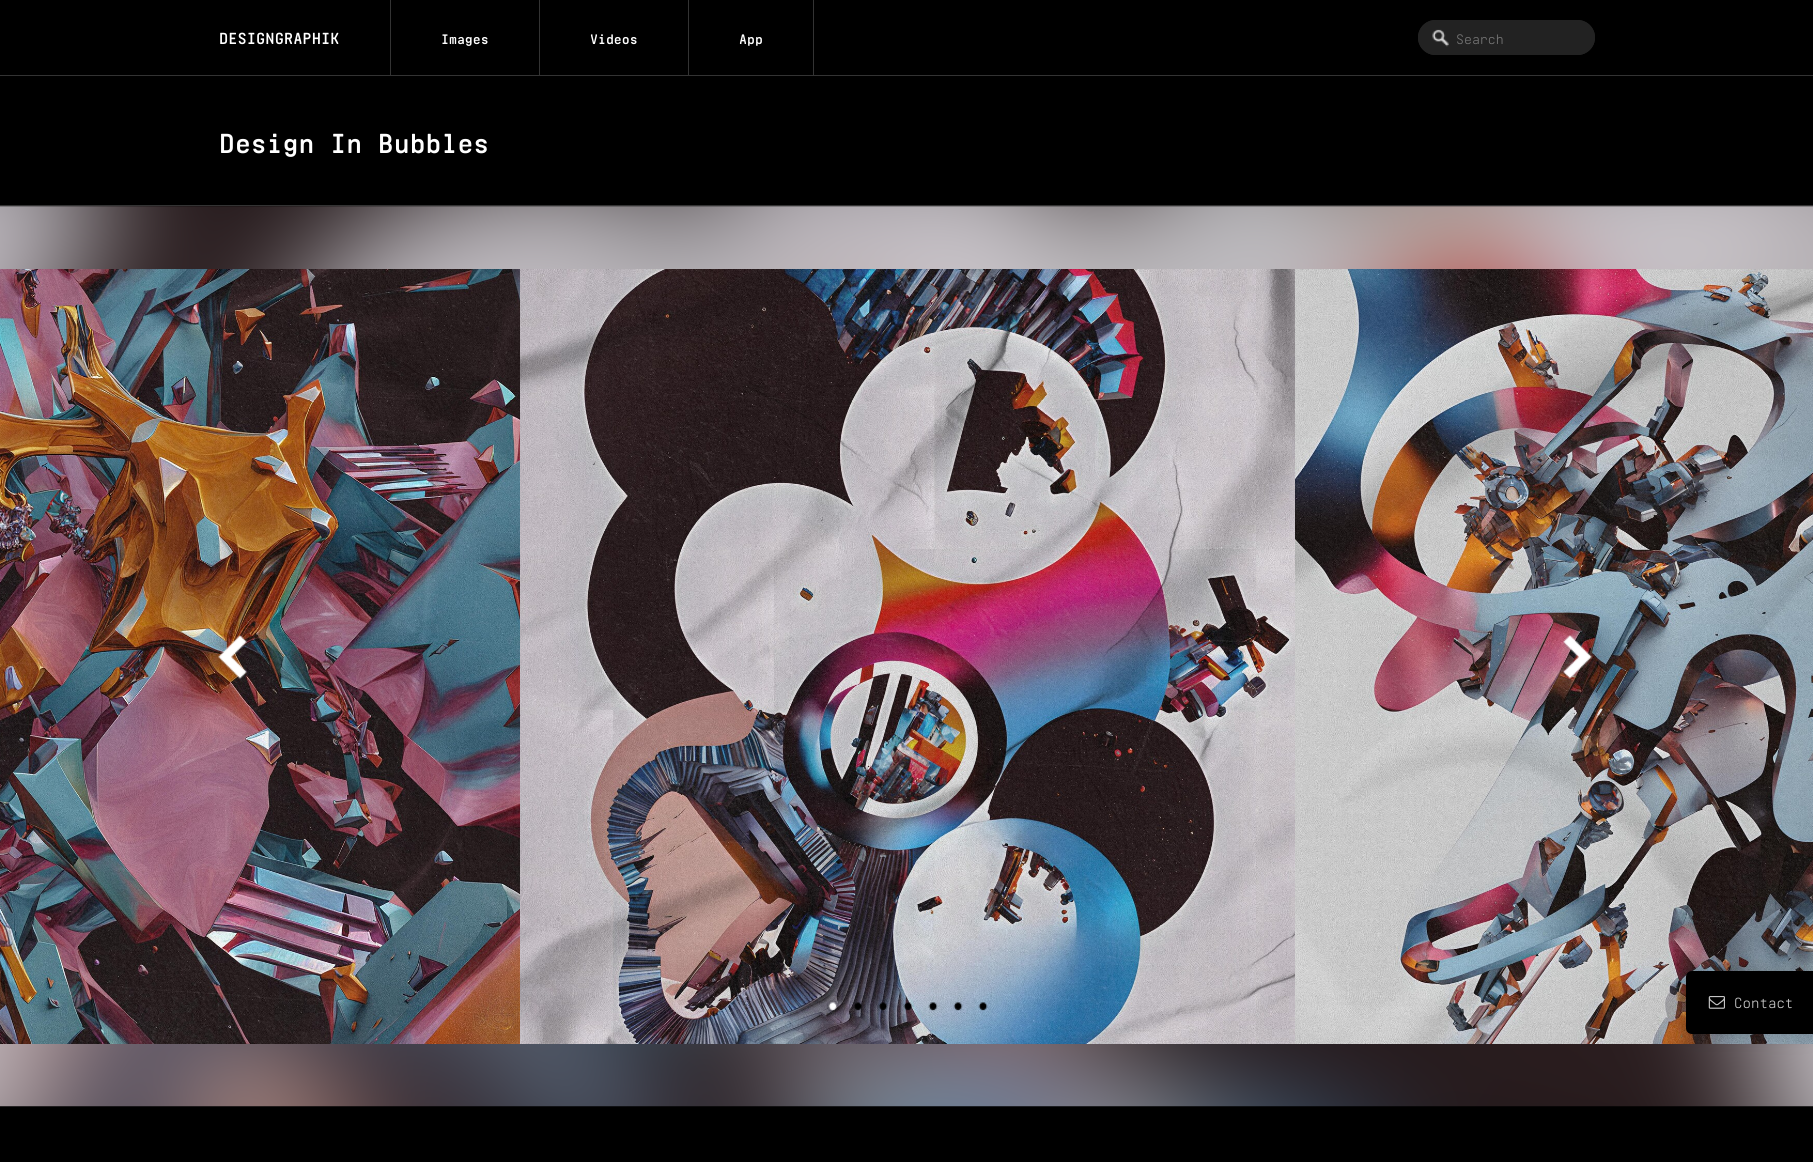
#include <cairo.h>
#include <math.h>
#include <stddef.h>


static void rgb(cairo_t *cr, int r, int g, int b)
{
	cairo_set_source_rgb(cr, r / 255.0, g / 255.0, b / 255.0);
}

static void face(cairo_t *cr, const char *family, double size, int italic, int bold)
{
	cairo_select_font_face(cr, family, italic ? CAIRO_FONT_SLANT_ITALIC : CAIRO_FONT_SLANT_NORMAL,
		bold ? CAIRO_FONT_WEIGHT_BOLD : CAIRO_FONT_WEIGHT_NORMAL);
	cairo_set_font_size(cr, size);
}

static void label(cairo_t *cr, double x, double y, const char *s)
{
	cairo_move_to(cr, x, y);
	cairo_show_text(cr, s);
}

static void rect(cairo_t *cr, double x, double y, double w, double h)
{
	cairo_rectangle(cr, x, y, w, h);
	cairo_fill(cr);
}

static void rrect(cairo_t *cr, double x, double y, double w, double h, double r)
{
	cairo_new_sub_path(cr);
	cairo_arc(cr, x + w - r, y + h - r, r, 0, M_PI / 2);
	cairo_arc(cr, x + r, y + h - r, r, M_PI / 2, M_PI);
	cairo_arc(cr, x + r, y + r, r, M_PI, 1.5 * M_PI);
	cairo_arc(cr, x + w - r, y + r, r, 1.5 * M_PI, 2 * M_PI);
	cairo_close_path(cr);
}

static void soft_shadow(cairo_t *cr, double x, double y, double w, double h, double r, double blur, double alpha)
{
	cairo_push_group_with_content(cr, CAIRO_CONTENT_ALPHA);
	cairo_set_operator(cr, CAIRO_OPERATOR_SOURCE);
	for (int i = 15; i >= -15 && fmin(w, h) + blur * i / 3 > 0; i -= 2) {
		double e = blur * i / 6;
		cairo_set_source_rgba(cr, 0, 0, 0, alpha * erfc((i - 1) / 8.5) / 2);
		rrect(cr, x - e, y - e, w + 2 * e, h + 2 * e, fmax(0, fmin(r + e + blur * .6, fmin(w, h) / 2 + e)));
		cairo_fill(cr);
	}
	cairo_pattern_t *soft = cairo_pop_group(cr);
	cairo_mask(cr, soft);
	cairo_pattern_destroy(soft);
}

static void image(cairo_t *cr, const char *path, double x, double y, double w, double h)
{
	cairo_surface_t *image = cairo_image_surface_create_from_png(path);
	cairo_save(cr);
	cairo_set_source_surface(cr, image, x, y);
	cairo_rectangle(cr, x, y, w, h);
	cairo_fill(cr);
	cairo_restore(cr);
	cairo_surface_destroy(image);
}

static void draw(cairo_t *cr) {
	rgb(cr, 0, 0, 0);
	cairo_paint(cr);
	rgb(cr, 51, 51, 51);
	rect(cr, 0, 75, 1813, 1);
	rect(cr, 390, 0, 1, 75);
	face(cr, "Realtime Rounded", 17.5, 0, 1);
	rgb(cr, 255, 255, 255);
	label(cr, 219, 44, "DESIGNGRAPHIK");
	rgb(cr, 51, 51, 51);
	rect(cr, 539, 0, 1, 75);
	face(cr, "Realtime Rounded", 15, 0, 1);
	rgb(cr, 255, 255, 255);
	label(cr, 441, 44, "Images");
	rgb(cr, 51, 51, 51);
	rect(cr, 688, 0, 1, 75);
	rgb(cr, 255, 255, 255);
	label(cr, 590, 44, "Videos");
	rgb(cr, 51, 51, 51);
	rect(cr, 813, 0, 1, 75);
	rgb(cr, 255, 255, 255);
	label(cr, 739, 44, "App");
	rgb(cr, 34, 34, 34);
	rrect(cr, 1418, 20, 177, 35, 17.5);
	cairo_fill(cr);
	image(cr, "image0.png", 1432, 29, 17, 18);
	rrect(cr, 1418.5, 20.5, 176, 34, 17);
	cairo_set_line_width(cr, 1);
	cairo_stroke(cr);
	face(cr, "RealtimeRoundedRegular", 15, 0, 0);
	rgb(cr, 117, 117, 117);
	label(cr, 1456, 44, "Search");
	face(cr, "Realtime Rounded", 30, 0, 1);
	rgb(cr, 255, 255, 255);
	label(cr, 219, 153, "Design In Bubbles");
	rgb(cr, 51, 51, 51);
	rect(cr, 0, 205, 1813, 1);
	image(cr, "image1.png", 0, 206, 1813, 901);
	image(cr, "image2.png", 0, 269, 520, 775);
	image(cr, "image3.png", 520, 269, 775, 775);
	image(cr, "image4.png", 1295, 269, 518, 775);
	image(cr, "image5.png", 218, 635, 29, 44);
	image(cr, "image6.png", 1563, 635, 29, 45);
	image(cr, "image7.png", 826, 1000, 13, 12);
	image(cr, "image8.png", 853, 1002, 9, 9);
	image(cr, "image9.png", 878, 1002, 10, 9);
	image(cr, "image10.png", 903, 1002, 10, 9);
	image(cr, "image11.png", 928, 1002, 10, 9);
	image(cr, "image12.png", 953, 1002, 10, 9);
	image(cr, "image13.png", 978, 1002, 10, 9);
	rgb(cr, 0, 0, 0);
	soft_shadow(cr, 1686, 971, 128, 63, 6, 9.5, 0.2);
	rgb(cr, 0, 0, 0);
	cairo_new_path(cr);
	cairo_move_to(cr, 1692, 971);
	cairo_line_to(cr, 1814, 971);
	cairo_line_to(cr, 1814, 1034);
	cairo_line_to(cr, 1692, 1034);
	cairo_curve_to(cr, 1688.5, 1034, 1686, 1031.5, 1686, 1028);
	cairo_line_to(cr, 1686, 977);
	cairo_curve_to(cr, 1686, 973.5, 1688.5, 971, 1692, 971);
	cairo_close_path(cr);
	cairo_fill(cr);
	image(cr, "image14.png", 1708, 996, 17, 13);
	face(cr, "RealtimeRoundedRegular", 16, 0, 0);
	rgb(cr, 197, 197, 197);
	label(cr, 1734, 1008, "Contact");
}

int main(void) {
	cairo_surface_t *surface = cairo_image_surface_create(CAIRO_FORMAT_RGB24, 1813, 1162);
	cairo_t *cr = cairo_create(surface);
	cairo_font_options_t *options = cairo_font_options_create();
	cairo_font_options_set_hint_metrics(options, CAIRO_HINT_METRICS_OFF);
	cairo_font_options_set_hint_style(options, CAIRO_HINT_STYLE_NONE);
	cairo_set_font_options(cr, options);
	cairo_set_miter_limit(cr, 4);
	draw(cr);
	cairo_surface_write_to_png(surface, "render.png");
	cairo_font_options_destroy(options);
	cairo_destroy(cr);
	cairo_surface_destroy(surface);
	return 0;
}
